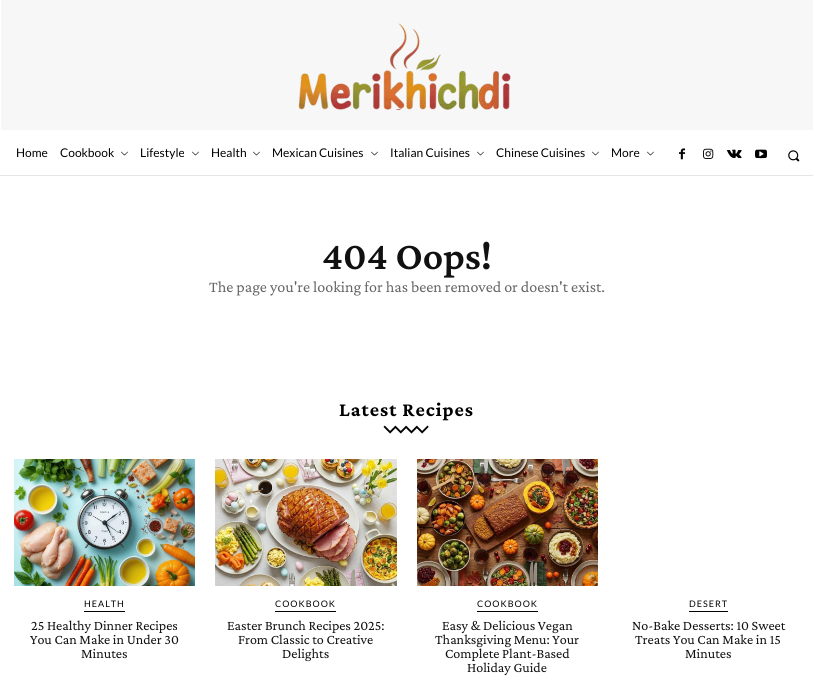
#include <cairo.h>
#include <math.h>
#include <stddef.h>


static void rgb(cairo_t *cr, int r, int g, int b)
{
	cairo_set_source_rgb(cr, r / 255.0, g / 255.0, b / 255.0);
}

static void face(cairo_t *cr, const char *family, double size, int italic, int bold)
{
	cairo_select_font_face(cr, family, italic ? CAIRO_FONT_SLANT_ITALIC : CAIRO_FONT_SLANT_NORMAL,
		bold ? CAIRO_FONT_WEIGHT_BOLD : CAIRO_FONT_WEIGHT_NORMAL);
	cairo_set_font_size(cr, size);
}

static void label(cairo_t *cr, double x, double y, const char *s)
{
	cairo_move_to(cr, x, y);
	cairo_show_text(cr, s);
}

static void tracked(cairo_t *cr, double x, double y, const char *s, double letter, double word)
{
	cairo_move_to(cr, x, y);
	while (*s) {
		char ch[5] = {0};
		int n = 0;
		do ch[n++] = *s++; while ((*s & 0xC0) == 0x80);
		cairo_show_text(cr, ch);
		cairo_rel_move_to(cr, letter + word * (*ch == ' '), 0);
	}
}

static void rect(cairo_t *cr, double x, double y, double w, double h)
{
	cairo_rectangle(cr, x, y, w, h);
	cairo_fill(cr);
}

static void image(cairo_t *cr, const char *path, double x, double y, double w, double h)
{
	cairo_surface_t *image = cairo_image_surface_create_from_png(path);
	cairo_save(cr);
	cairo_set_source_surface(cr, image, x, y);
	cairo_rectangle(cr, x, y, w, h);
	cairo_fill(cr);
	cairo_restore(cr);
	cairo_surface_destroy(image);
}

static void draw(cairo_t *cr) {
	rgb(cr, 255, 255, 255);
	cairo_paint(cr);
	rgb(cr, 247, 247, 247);
	rect(cr, 1, 0, 812, 130);
	image(cr, "image0.png", 298, 23, 213, 87);
	face(cr, "Lato", 12, 0, 0);
	rgb(cr, 0, 0, 0);
	label(cr, 16, 157, "Home");
	label(cr, 60, 157, "Cookbook");
	image(cr, "image1.png", 121, 151, 7, 5);
	label(cr, 140, 157, "Lifestyle");
	image(cr, "image1.png", 192, 151, 7, 5);
	label(cr, 211, 157, "Health");
	image(cr, "image1.png", 253, 151, 7, 5);
	label(cr, 272, 157, "Mexican Cuisines");
	image(cr, "image1.png", 371, 151, 7, 5);
	label(cr, 390, 157, "Italian Cuisines");
	image(cr, "image1.png", 477, 151, 7, 5);
	label(cr, 496, 157, "Chinese Cuisines");
	image(cr, "image1.png", 592, 151, 7, 5);
	label(cr, 611, 157, "More");
	image(cr, "image1.png", 647, 151, 7, 5);
	image(cr, "image2.png", 679, 148, 6, 12);
	image(cr, "image3.png", 703, 148, 11, 11);
	image(cr, "image4.png", 727, 149, 15, 10);
	image(cr, "image5.png", 755, 149, 12, 10);
	image(cr, "image6.png", 788, 150, 12, 12);
	rgb(cr, 229, 229, 229);
	rect(cr, 0, 175, 813, 1);
	face(cr, "Crimson Pro SemiBold", 40, 0, 0);
	rgb(cr, 17, 17, 17);
	label(cr, 322, 269, "404 Oops!");
	face(cr, "Crimson Pro", 16, 0, 0);
	rgb(cr, 102, 102, 102);
	label(cr, 209, 292, "The page you're looking for has been removed or doesn't exist.");
	face(cr, "Crimson Pro", 20, 0, 1);
	rgb(cr, 0, 0, 0);
	tracked(cr, 339, 416, "Latest Recipes", 1, 0);
	image(cr, "image7.png", 383, 425, 46, 9);
	image(cr, "image8.png", 14, 459, 181, 127);
	rect(cr, 84, 611, 41, 1);
	face(cr, "Lato", 9, 0, 0);
	tracked(cr, 84, 607, "HEALTH", 1, 0);
	face(cr, "Crimson Pro", 14, 0, 0);
	rgb(cr, 17, 17, 17);
	label(cr, 31, 630, "25 Healthy Dinner Recipes");
	label(cr, 30, 644, "You Can Make in Under 30");
	label(cr, 81, 658, "Minutes");
	image(cr, "image9.png", 215, 459, 182, 127);
	rgb(cr, 0, 0, 0);
	rect(cr, 275, 611, 61, 1);
	face(cr, "Lato", 9, 0, 0);
	tracked(cr, 275, 607, "COOKBOOK", 1, 0);
	face(cr, "Crimson Pro", 14, 0, 0);
	rgb(cr, 17, 17, 17);
	label(cr, 227, 630, "Easter Brunch Recipes 2025:");
	label(cr, 238, 644, "From Classic to Creative");
	label(cr, 282, 658, "Delights");
	image(cr, "image10.png", 417, 459, 181, 127);
	rgb(cr, 0, 0, 0);
	rect(cr, 477, 611, 61, 1);
	face(cr, "Lato", 9, 0, 0);
	tracked(cr, 477, 607, "COOKBOOK", 1, 0);
	face(cr, "Crimson Pro", 14, 0, 0);
	rgb(cr, 17, 17, 17);
	label(cr, 442, 630, "Easy & Delicious Vegan");
	label(cr, 435, 644, "Thanksgiving Menu: Your");
	label(cr, 445, 658, "Complete Plant-Based");
	label(cr, 467, 672, "Holiday Guide");
	rgb(cr, 0, 0, 0);
	rect(cr, 689, 611, 39, 1);
	face(cr, "Lato", 9, 0, 0);
	tracked(cr, 689, 607, "DESERT", 1, 0);
	face(cr, "Crimson Pro", 14, 0, 0);
	rgb(cr, 17, 17, 17);
	label(cr, 632, 630, "No-Bake Desserts: 10 Sweet");
	label(cr, 635, 644, "Treats You Can Make in 15");
	label(cr, 685, 658, "Minutes");
}

int main(void) {
	cairo_surface_t *surface = cairo_image_surface_create(CAIRO_FORMAT_RGB24, 813, 684);
	cairo_t *cr = cairo_create(surface);
	cairo_font_options_t *options = cairo_font_options_create();
	cairo_font_options_set_hint_metrics(options, CAIRO_HINT_METRICS_OFF);
	cairo_font_options_set_hint_style(options, CAIRO_HINT_STYLE_NONE);
	cairo_set_font_options(cr, options);
	cairo_set_miter_limit(cr, 4);
	draw(cr);
	cairo_surface_write_to_png(surface, "render.png");
	cairo_font_options_destroy(options);
	cairo_destroy(cr);
	cairo_surface_destroy(surface);
	return 0;
}
